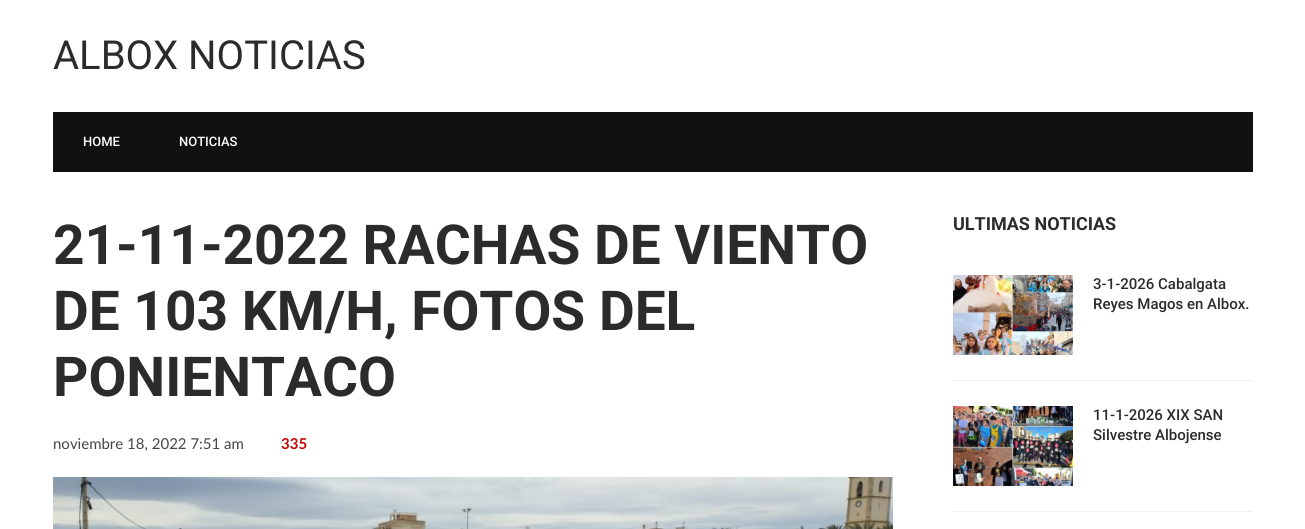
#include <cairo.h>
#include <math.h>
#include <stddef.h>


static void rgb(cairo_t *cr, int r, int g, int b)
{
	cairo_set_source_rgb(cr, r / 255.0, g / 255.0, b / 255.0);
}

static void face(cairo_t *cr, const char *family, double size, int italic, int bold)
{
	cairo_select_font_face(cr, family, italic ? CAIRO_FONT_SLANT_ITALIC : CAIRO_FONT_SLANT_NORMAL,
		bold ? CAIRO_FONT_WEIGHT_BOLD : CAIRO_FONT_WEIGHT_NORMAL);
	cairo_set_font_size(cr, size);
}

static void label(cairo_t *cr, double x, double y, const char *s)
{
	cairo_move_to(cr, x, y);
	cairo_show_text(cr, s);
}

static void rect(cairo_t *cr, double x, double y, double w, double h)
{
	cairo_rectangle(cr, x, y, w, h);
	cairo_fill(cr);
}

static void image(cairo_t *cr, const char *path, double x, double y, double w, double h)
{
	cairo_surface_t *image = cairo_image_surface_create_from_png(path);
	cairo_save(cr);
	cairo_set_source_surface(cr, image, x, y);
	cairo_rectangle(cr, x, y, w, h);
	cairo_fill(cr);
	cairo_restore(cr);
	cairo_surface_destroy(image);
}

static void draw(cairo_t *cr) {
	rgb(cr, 255, 255, 255);
	cairo_paint(cr);
	face(cr, "Roboto", 40, 0, 0);
	rgb(cr, 43, 43, 43);
	label(cr, 53, 69, "ALBOX NOTICIAS");
	rgb(cr, 17, 17, 17);
	rect(cr, 53, 112, 1200, 60);
	face(cr, "Roboto Medium", 13, 0, 0);
	rgb(cr, 255, 255, 255);
	label(cr, 83, 146, "HOME");
	label(cr, 179, 146, "NOTICIAS");
	face(cr, "Roboto", 55, 0, 1);
	rgb(cr, 43, 43, 43);
	label(cr, 53, 264, "21-11-2022 RACHAS DE VIENTO");
	label(cr, 53, 330, "DE 103 KM/H, FOTOS DEL");
	label(cr, 53, 396, "PONIENTACO");
	face(cr, "Lato", 15, 0, 0);
	rgb(cr, 68, 68, 68);
	label(cr, 53, 449, "noviembre 18, 2022 7:51 am");
	face(cr, "Lato", 15, 0, 1);
	rgb(cr, 203, 4, 4);
	label(cr, 281, 449, "335");
	image(cr, "image0.png", 53, 477, 840, 52);
	face(cr, "Roboto", 18, 0, 1);
	rgb(cr, 43, 43, 43);
	label(cr, 953, 230, "ULTIMAS NOTICIAS");
	rgb(cr, 238, 238, 238);
	rect(cr, 953, 380, 300, 1);
	image(cr, "image1.png", 953, 275, 120, 80);
	face(cr, "Roboto Medium", 15, 0, 0);
	rgb(cr, 43, 43, 43);
	label(cr, 1093, 289, "3-1-2026 Cabalgata");
	label(cr, 1093, 309, "Reyes Magos en Albox.");
	rgb(cr, 238, 238, 238);
	rect(cr, 953, 511, 300, 1);
	image(cr, "image2.png", 953, 406, 120, 80);
	rgb(cr, 43, 43, 43);
	label(cr, 1093, 420, "11-1-2026 XIX SAN");
	label(cr, 1093, 440, "Silvestre Albojense");
}

int main(void) {
	cairo_surface_t *surface = cairo_image_surface_create(CAIRO_FORMAT_RGB24, 1305, 529);
	cairo_t *cr = cairo_create(surface);
	cairo_font_options_t *options = cairo_font_options_create();
	cairo_font_options_set_hint_metrics(options, CAIRO_HINT_METRICS_OFF);
	cairo_font_options_set_hint_style(options, CAIRO_HINT_STYLE_NONE);
	cairo_set_font_options(cr, options);
	cairo_set_miter_limit(cr, 4);
	draw(cr);
	cairo_surface_write_to_png(surface, "render.png");
	cairo_font_options_destroy(options);
	cairo_destroy(cr);
	cairo_surface_destroy(surface);
	return 0;
}
